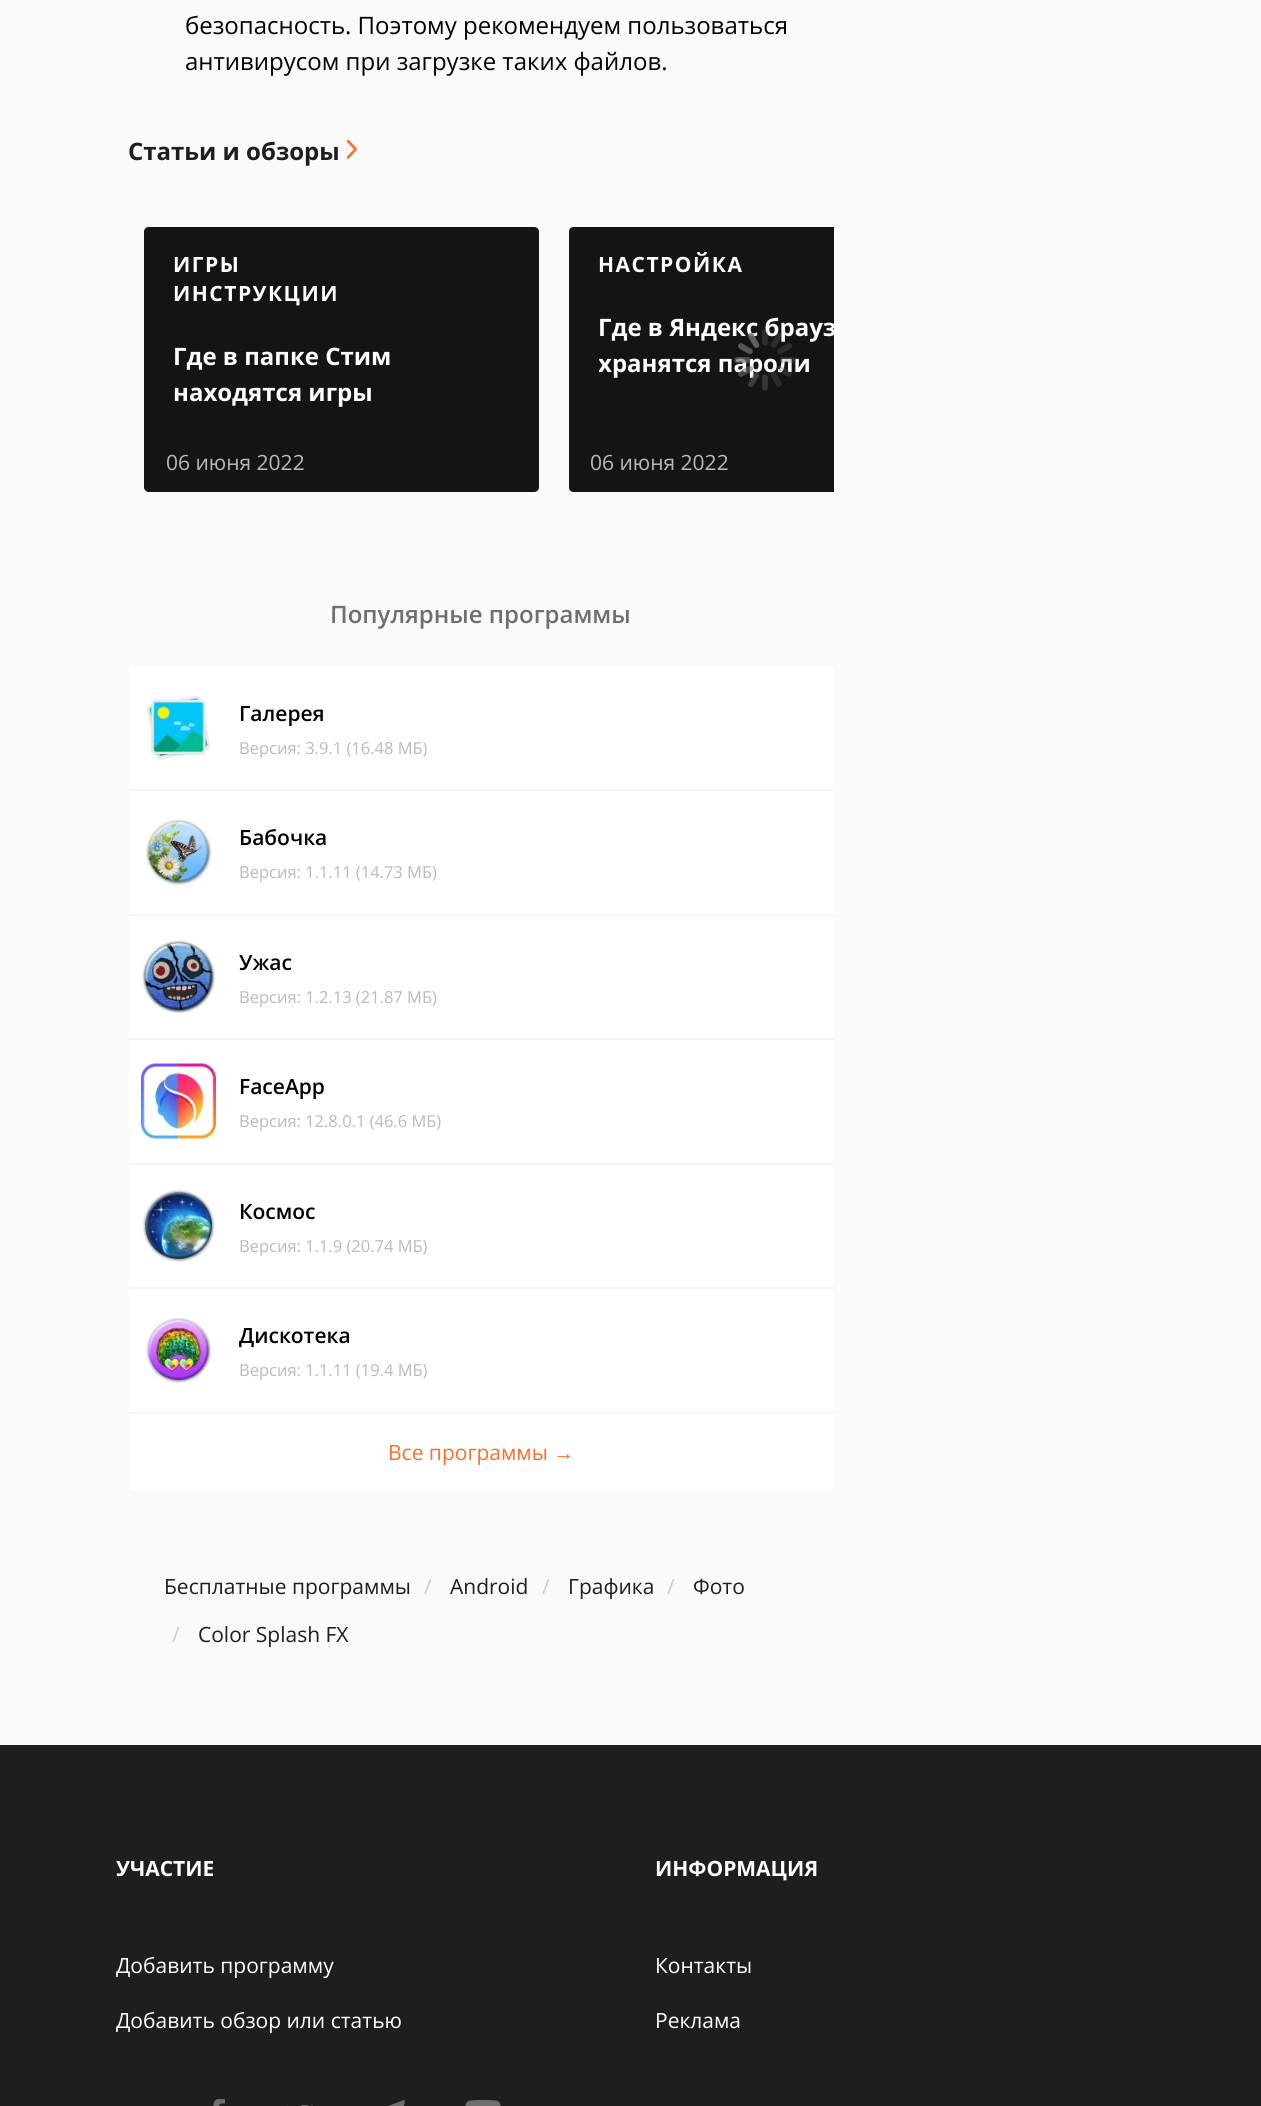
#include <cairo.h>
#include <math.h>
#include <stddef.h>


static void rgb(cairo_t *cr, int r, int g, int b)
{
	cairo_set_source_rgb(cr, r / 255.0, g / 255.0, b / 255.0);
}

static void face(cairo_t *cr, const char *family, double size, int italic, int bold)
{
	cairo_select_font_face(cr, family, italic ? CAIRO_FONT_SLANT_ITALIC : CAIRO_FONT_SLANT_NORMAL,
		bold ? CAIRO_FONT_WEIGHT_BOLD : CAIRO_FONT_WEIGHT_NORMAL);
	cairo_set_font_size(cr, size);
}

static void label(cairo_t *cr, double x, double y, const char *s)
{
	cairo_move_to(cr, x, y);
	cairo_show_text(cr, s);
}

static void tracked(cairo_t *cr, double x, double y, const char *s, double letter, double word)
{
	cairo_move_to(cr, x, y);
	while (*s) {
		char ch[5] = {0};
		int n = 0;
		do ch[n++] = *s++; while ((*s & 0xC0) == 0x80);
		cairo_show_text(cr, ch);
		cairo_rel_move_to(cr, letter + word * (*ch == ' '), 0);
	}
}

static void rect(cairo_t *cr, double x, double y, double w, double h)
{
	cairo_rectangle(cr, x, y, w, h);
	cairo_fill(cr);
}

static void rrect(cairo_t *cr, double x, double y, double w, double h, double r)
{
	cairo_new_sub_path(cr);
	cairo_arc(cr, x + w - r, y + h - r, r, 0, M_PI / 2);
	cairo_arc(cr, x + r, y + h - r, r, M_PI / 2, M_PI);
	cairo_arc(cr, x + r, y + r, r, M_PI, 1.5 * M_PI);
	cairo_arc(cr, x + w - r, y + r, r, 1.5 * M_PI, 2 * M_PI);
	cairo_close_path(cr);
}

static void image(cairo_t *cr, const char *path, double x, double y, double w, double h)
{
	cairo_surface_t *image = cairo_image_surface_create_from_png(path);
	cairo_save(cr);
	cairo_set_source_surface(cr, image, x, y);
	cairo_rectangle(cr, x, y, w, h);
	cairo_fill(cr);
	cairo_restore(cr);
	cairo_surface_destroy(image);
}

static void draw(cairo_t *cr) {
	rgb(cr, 250, 250, 250);
	cairo_paint(cr);
	face(cr, "Open Sans", 24, 0, 0);
	rgb(cr, 0, 0, 0);
	label(cr, 185, 34, "безопасность. Поэтому рекомендуем пользоваться");
	label(cr, 185, 70, "антивирусом при загрузке таких файлов.");
	face(cr, "Open Sans", 24, 0, 1);
	rgb(cr, 30, 30, 30);
	label(cr, 128, 160, "Статьи и обзоры");
	image(cr, "image0.png", 347, 140, 10, 19);
	rgb(cr, 51, 51, 51);
	rrect(cr, 144, 227, 395, 265, 5);
	cairo_fill(cr);
	cairo_set_source_rgba(cr, 0, 0, 0, 0.6);
	rrect(cr, 144, 227, 395, 265, 5);
	cairo_fill(cr);
	face(cr, "Open Sans", 21, 0, 1);
	rgb(cr, 255, 255, 255);
	tracked(cr, 173, 272, "ИГРЫ", 1.5, 0);
	tracked(cr, 173, 301, "ИНСТРУКЦИИ", 1.5, 0);
	face(cr, "Open Sans", 24, 0, 1);
	label(cr, 173, 365, "Где в папке Стим");
	label(cr, 173, 401, "находятся игры");
	face(cr, "Open Sans", 21, 0, 0);
	rgb(cr, 186, 186, 186);
	label(cr, 166, 470, "06 июня 2022");
	rgb(cr, 51, 51, 51);
	cairo_new_path(cr);
	cairo_move_to(cr, 574, 227);
	cairo_line_to(cr, 834, 227);
	cairo_line_to(cr, 834, 492);
	cairo_line_to(cr, 574, 492);
	cairo_curve_to(cr, 571, 492, 569, 490, 569, 487);
	cairo_line_to(cr, 569, 232);
	cairo_curve_to(cr, 569, 229, 571, 227, 574, 227);
	cairo_close_path(cr);
	cairo_fill(cr);
	cairo_set_source_rgba(cr, 0, 0, 0, 0.6);
	cairo_new_path(cr);
	cairo_move_to(cr, 574, 227);
	cairo_line_to(cr, 834, 227);
	cairo_line_to(cr, 834, 492);
	cairo_line_to(cr, 574, 492);
	cairo_curve_to(cr, 571, 492, 569, 490, 569, 487);
	cairo_line_to(cr, 569, 232);
	cairo_curve_to(cr, 569, 229, 571, 227, 574, 227);
	cairo_close_path(cr);
	cairo_fill(cr);
	face(cr, "Open Sans", 21, 0, 1);
	rgb(cr, 255, 255, 255);
	tracked(cr, 598, 272, "НАСТРОЙКА", 1.5, 0);
	cairo_save(cr);
	cairo_rectangle(cr, 599, 309, 235, 72);
	cairo_clip(cr);
	face(cr, "Open Sans", 24, 0, 1);
	label(cr, 598, 336, "Где в Яндекс брауз");
	label(cr, 598, 372, "хранятся пароли");
	cairo_restore(cr);
	image(cr, "image1.png", 734, 329, 62, 62);
	face(cr, "Open Sans", 21, 0, 0);
	rgb(cr, 186, 186, 186);
	label(cr, 590, 470, "06 июня 2022");
	face(cr, "Open Sans SemiBold", 24, 0, 0);
	rgb(cr, 111, 111, 111);
	label(cr, 330, 623, "Популярные программы");
	rgb(cr, 255, 255, 255);
	rrect(cr, 129, 666, 705, 825, 6);
	cairo_fill(cr);
	image(cr, "image2.png", 146, 695, 65, 65);
	face(cr, "Open Sans SemiBold", 21, 0, 0);
	rgb(cr, 0, 0, 0);
	label(cr, 239, 721, "Галерея");
	face(cr, "Open Sans", 16.5, 0, 0);
	rgb(cr, 186, 186, 186);
	label(cr, 239, 754, "Версия: 3.9.1 (16.48 МБ)");
	rgb(cr, 245, 245, 245);
	rect(cr, 129, 789, 705, 2);
	image(cr, "image3.png", 146, 819, 66, 70);
	face(cr, "Open Sans SemiBold", 21, 0, 0);
	rgb(cr, 0, 0, 0);
	label(cr, 239, 845, "Бабочка");
	face(cr, "Open Sans", 16.5, 0, 0);
	rgb(cr, 186, 186, 186);
	label(cr, 239, 878, "Версия: 1.1.11 (14.73 МБ)");
	rgb(cr, 245, 245, 245);
	rect(cr, 129, 914, 705, 2);
	image(cr, "image4.png", 141, 940, 75, 74);
	face(cr, "Open Sans SemiBold", 21, 0, 0);
	rgb(cr, 0, 0, 0);
	label(cr, 239, 970, "Ужас");
	face(cr, "Open Sans", 16.5, 0, 0);
	rgb(cr, 186, 186, 186);
	label(cr, 239, 1003, "Версия: 1.2.13 (21.87 МБ)");
	rgb(cr, 245, 245, 245);
	rect(cr, 129, 1038, 705, 2);
	image(cr, "image5.png", 141, 1063, 75, 76);
	face(cr, "Open Sans SemiBold", 21, 0, 0);
	rgb(cr, 0, 0, 0);
	label(cr, 239, 1094, "FaceApp");
	face(cr, "Open Sans", 16.5, 0, 0);
	rgb(cr, 186, 186, 186);
	label(cr, 239, 1127, "Версия: 12.8.0.1 (46.6 МБ)");
	rgb(cr, 245, 245, 245);
	rect(cr, 129, 1163, 705, 2);
	image(cr, "image6.png", 142, 1189, 73, 73);
	face(cr, "Open Sans SemiBold", 21, 0, 0);
	rgb(cr, 0, 0, 0);
	label(cr, 239, 1219, "Космос");
	face(cr, "Open Sans", 16.5, 0, 0);
	rgb(cr, 186, 186, 186);
	label(cr, 239, 1252, "Версия: 1.1.9 (20.74 МБ)");
	rgb(cr, 245, 245, 245);
	rect(cr, 129, 1287, 705, 2);
	image(cr, "image7.png", 146, 1317, 69, 67);
	face(cr, "Open Sans SemiBold", 21, 0, 0);
	rgb(cr, 0, 0, 0);
	label(cr, 239, 1343, "Дискотека");
	face(cr, "Open Sans", 16.5, 0, 0);
	rgb(cr, 186, 186, 186);
	label(cr, 239, 1376, "Версия: 1.1.11 (19.4 МБ)");
	rgb(cr, 245, 245, 245);
	rect(cr, 129, 1412, 705, 2);
	face(cr, "Open Sans", 21, 0, 0);
	rgb(cr, 253, 111, 41);
	label(cr, 388, 1460, "Все программы");
	face(cr, "Liberation Sans", 21, 0, 0);
	label(cr, 553, 1460, "→");
	face(cr, "Open Sans", 21, 0, 0);
	rgb(cr, 30, 30, 30);
	label(cr, 164, 1594, "Бесплатные программы");
	rgb(cr, 204, 204, 204);
	label(cr, 424, 1594, "/");
	rgb(cr, 30, 30, 30);
	label(cr, 450, 1594, "Android");
	rgb(cr, 204, 204, 204);
	label(cr, 542, 1594, "/");
	rgb(cr, 30, 30, 30);
	label(cr, 568, 1594, "Графика");
	rgb(cr, 204, 204, 204);
	label(cr, 667, 1594, "/");
	rgb(cr, 30, 30, 30);
	label(cr, 693, 1594, "Фото");
	rgb(cr, 204, 204, 204);
	label(cr, 172, 1642, "/");
	rgb(cr, 30, 30, 30);
	label(cr, 198, 1642, "Color Splash FX");
	rect(cr, 0, 1745, 1261, 361);
	face(cr, "Open Sans", 21, 0, 1);
	rgb(cr, 255, 255, 255);
	label(cr, 116, 1876, "УЧАСТИЕ");
	face(cr, "Open Sans", 21, 0, 0);
	label(cr, 116, 1973, "Добавить программу");
	label(cr, 116, 2028, "Добавить обзор или статью");
	face(cr, "Open Sans", 21, 0, 1);
	label(cr, 655, 1876, "ИНФОРМАЦИЯ");
	face(cr, "Open Sans", 21, 0, 0);
	label(cr, 655, 1973, "Контакты");
	label(cr, 655, 2028, "Реклама");
	image(cr, "image8.png", 213, 2099, 12, 7);
	image(cr, "image9.png", 286, 2105, 27, 1);
	image(cr, "image10.png", 388, 2100, 17, 6);
	image(cr, "image11.png", 465, 2100, 36, 6);
}

int main(void) {
	cairo_surface_t *surface = cairo_image_surface_create(CAIRO_FORMAT_RGB24, 1261, 2106);
	cairo_t *cr = cairo_create(surface);
	cairo_font_options_t *options = cairo_font_options_create();
	cairo_font_options_set_hint_metrics(options, CAIRO_HINT_METRICS_OFF);
	cairo_font_options_set_hint_style(options, CAIRO_HINT_STYLE_NONE);
	cairo_set_font_options(cr, options);
	cairo_set_miter_limit(cr, 4);
	draw(cr);
	cairo_surface_write_to_png(surface, "render.png");
	cairo_font_options_destroy(options);
	cairo_destroy(cr);
	cairo_surface_destroy(surface);
	return 0;
}
